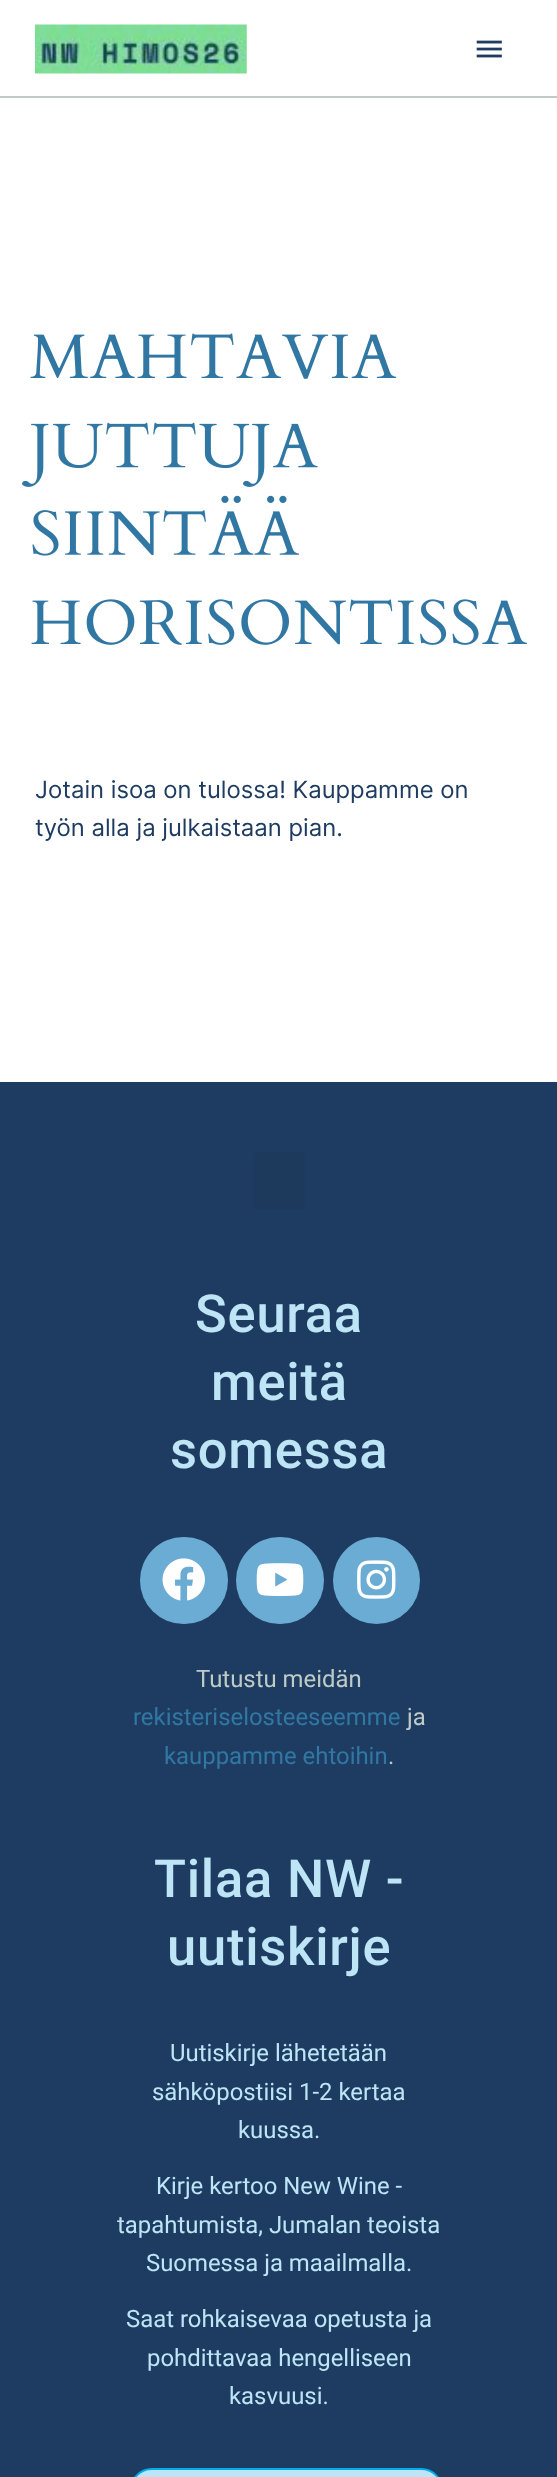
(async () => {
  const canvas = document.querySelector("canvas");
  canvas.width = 557;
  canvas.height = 2477;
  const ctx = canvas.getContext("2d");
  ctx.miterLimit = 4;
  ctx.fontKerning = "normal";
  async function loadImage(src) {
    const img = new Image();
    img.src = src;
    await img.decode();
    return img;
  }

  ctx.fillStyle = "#ffffff";
  ctx.fillRect(0, 0, 557, 2477);
  ctx.fillStyle = "#bfcbc7";
  ctx.fillRect(0, 96, 557, 2);
  ctx.drawImage(await loadImage("img/1.png"), 35, 24, 212, 50);
  ctx.drawImage(await loadImage("img/2.png"), 476, 40, 26, 18);
  ctx.drawImage(await loadImage("img/3.png"), 30, 333, 367, 46);
  ctx.drawImage(await loadImage("img/4.png"), 22, 422, 296, 65);
  ctx.drawImage(await loadImage("img/5.png"), 32, 495, 267, 61);
  ctx.drawImage(await loadImage("img/6.png"), 31, 599, 496, 46);
  ctx.fillStyle = "#1e3c61";
  ctx.fillRect(0, 1082, 557, 1395);
  ctx.fillStyle = "#1d395c";
  ctx.beginPath();
  ctx.roundRect(254, 1152, 51, 57, 5);
  ctx.fill();
  ctx.fillStyle = "#6aacd3";
  ctx.beginPath();
  ctx.roundRect(140, 1537, 88, 87, 43.5);
  ctx.fill();
  ctx.drawImage(await loadImage("img/7.png"), 162, 1558, 43, 43);
  ctx.beginPath();
  ctx.roundRect(236, 1537, 88, 87, 43.5);
  ctx.fill();
  ctx.drawImage(await loadImage("img/8.png"), 256, 1563, 48, 33);
  ctx.beginPath();
  ctx.arc(376.5, 1580.5, 43.5, 0, Math.PI * 2);
  ctx.fill();
  ctx.drawImage(await loadImage("img/9.png"), 357, 1560, 39, 39);
  ctx.fillStyle = "#bde5f6";
  ctx.beginPath();
  ctx.roundRect(131, 2469, 311, 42, 32);
  ctx.fill();
  ctx.strokeStyle = "#00aeef";
  ctx.lineWidth = 2;
  ctx.stroke();
  ctx.font = "23.9px Inter";
  ctx.fillStyle = "#1e3c61";
  ctx.fillText("Jotain isoa on tulossa! Kauppamme on", 35, 798);
  ctx.fillText("työn alla ja julkaistaan pian.", 35, 836);
  ctx.letterSpacing = "0.75px";
  ctx.font = "500 52.5px Roboto";
  ctx.fillStyle = "#bde5f6";
  for (const [text, x, y] of [
    ["Seuraa", 195, 1332],
    ["meitä", 211, 1400],
    ["somessa", 170, 1468],
  ]) {
    ctx.fillText(text, x, y);
  }
  ctx.letterSpacing = "0px";
  ctx.font = "23.9px Roboto";
  ctx.fillStyle = "#bfcbc7";
  ctx.fillText("Tutustu meidän", 196, 1687);
  ctx.fillStyle = "#3177a3";
  ctx.fillText("rekisteriselosteeseemme", 133, 1725);
  ctx.fillStyle = "#bfcbc7";
  ctx.fillText("ja", 407, 1725);
  ctx.fillStyle = "#3177a3";
  ctx.fillText("kauppamme ehtoihin", 164, 1764);
  ctx.fillStyle = "#bfcbc7";
  ctx.fillText(".", 388, 1764);
  ctx.letterSpacing = "0.75px";
  ctx.font = "500 52.5px Roboto";
  ctx.fillStyle = "#bde5f6";
  ctx.fillText("Tilaa NW -", 154, 1897);
  ctx.fillText("uutiskirje", 167, 1965);
  ctx.letterSpacing = "0px";
  ctx.font = "23.9px Roboto";
  for (const [text, x, y] of [
    ["Uutiskirje lähetetään", 170, 2061],
    ["sähköpostiisi 1-2 kertaa", 152, 2100],
    ["kuussa.", 238, 2138],
    ["Kirje kertoo New Wine -", 156, 2194],
    ["tapahtumista, Jumalan teoista", 117, 2233],
    ["Suomessa ja maailmalla.", 146, 2271],
    ["Saat rohkaisevaa opetusta ja", 126, 2327],
    ["pohdittavaa hengelliseen", 147, 2366],
    ["kasvuusi.", 229, 2404],
  ]) {
    ctx.fillText(text, x, y);
  }
})();
